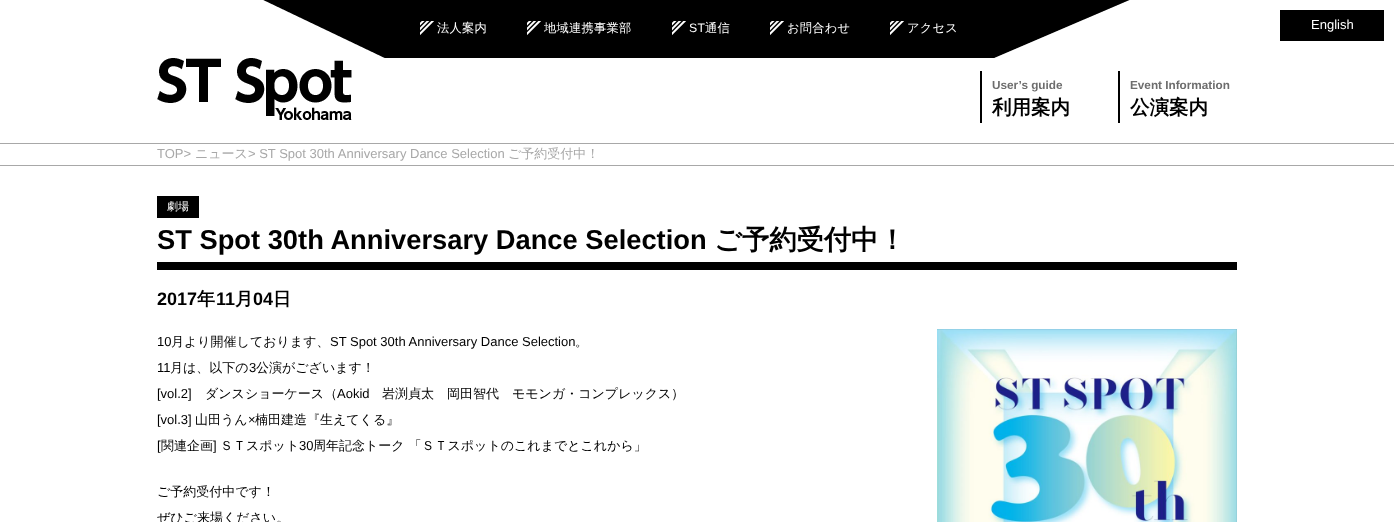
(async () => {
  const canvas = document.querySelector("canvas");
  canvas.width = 1394;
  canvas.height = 522;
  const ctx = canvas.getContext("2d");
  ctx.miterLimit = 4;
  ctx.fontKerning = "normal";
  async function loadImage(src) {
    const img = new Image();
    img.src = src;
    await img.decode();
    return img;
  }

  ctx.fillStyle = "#ffffff";
  ctx.fillRect(0, 0, 1394, 522);
  ctx.drawImage(await loadImage("img/1.png"), 263, 0, 867, 58);
  ctx.drawImage(await loadImage("img/2.png"), 420, 21, 14, 14);
  ctx.drawImage(await loadImage("img/2.png"), 527, 21, 14, 14);
  ctx.drawImage(await loadImage("img/2.png"), 672, 21, 14, 14);
  ctx.drawImage(await loadImage("img/2.png"), 770, 21, 14, 14);
  ctx.drawImage(await loadImage("img/2.png"), 890, 21, 14, 14);
  ctx.fillStyle = "#000000";
  ctx.fillRect(1280, 10, 104, 31);
  ctx.drawImage(await loadImage("img/3.png"), 157, 58, 195, 62);
  for (const [x, y, w, h, color] of [
    [980, 71, 2, 52, "#000000"],
    [1118, 71, 2, 52, "#000000"],
    [0, 143, 1394, 1, "#a8a8a8"],
    [0, 165, 1394, 1, "#a8a8a8"],
    [157, 196, 42, 22, "#000000"],
    [157, 262, 1080, 8, "#000000"],
  ]) {
    ctx.fillStyle = color;
    ctx.fillRect(x, y, w, h);
  }
  ctx.drawImage(await loadImage("img/4.png"), 937, 329, 300, 193);
  ctx.letterSpacing = "0.25px";
  ctx.font = "500 12.25px WenQuanYi Zen Hei";
  ctx.fillStyle = "#ffffff";
  ctx.fillText("法人案内", 437, 32);
  ctx.fillText("地域連携事業部", 544, 32);
  ctx.font = "12.25px Liberation Sans";
  ctx.fillText("ST", 689, 32);
  ctx.font = "500 12.25px WenQuanYi Zen Hei";
  for (const [text, x, y] of [
    ["通信", 705, 32],
    ["お問合わせ", 787, 32],
    ["アクセス", 907, 32],
  ]) {
    ctx.fillText(text, x, y);
  }
  ctx.letterSpacing = "0px";
  ctx.font = "13px Liberation Sans";
  ctx.fillText("English", 1311, 29);
  ctx.font = "bold 11.75px Liberation Sans";
  ctx.fillStyle = "#6d6d6d";
  ctx.fillText("User’s guide", 992, 89);
  ctx.font = "bold 19.5px WenQuanYi Zen Hei";
  ctx.fillStyle = "#000000";
  ctx.fillText("利用案内", 992, 114);
  ctx.font = "bold 11.75px Liberation Sans";
  ctx.fillStyle = "#6d6d6d";
  ctx.fillText("Event Information", 1130, 89);
  ctx.font = "bold 19.5px WenQuanYi Zen Hei";
  ctx.fillStyle = "#000000";
  ctx.fillText("公演案内", 1130, 114);
  ctx.font = "13px Liberation Sans";
  ctx.fillStyle = "#a8a8a8";
  ctx.fillText("TOP>", 157, 158);
  ctx.font = "500 13px WenQuanYi Zen Hei";
  ctx.fillText("ニュース", 195, 158);
  ctx.font = "13px Liberation Sans";
  ctx.fillText("> ST Spot 30th Anniversary Dance Selection", 248, 158);
  ctx.font = "500 13px WenQuanYi Zen Hei";
  ctx.fillText("ご予約受付中！", 508, 158);
  ctx.font = "500 11px WenQuanYi Zen Hei";
  ctx.fillStyle = "#ffffff";
  ctx.fillText("劇場", 167, 210);
  ctx.font = "bold 27.3px Liberation Sans";
  ctx.fillStyle = "#000000";
  ctx.fillText("ST Spot 30th Anniversary Dance Selection", 157, 249);
  ctx.font = "bold 27.3px WenQuanYi Zen Hei";
  ctx.fillText("ご予約受付中！", 714, 249);
  ctx.font = "bold 18px Liberation Sans";
  ctx.fillText("2017", 157, 305);
  ctx.font = "bold 18px WenQuanYi Zen Hei";
  ctx.fillText("年", 197, 305);
  ctx.font = "bold 18px Liberation Sans";
  ctx.fillText("11", 216, 305);
  ctx.font = "bold 18px WenQuanYi Zen Hei";
  ctx.fillText("月", 235, 305);
  ctx.font = "bold 18px Liberation Sans";
  ctx.fillText("04", 253, 305);
  ctx.font = "bold 18px WenQuanYi Zen Hei";
  ctx.fillText("日", 273, 305);
  ctx.font = "13px Liberation Sans";
  ctx.fillText("10", 157, 346);
  ctx.font = "500 13px WenQuanYi Zen Hei";
  ctx.fillText("月より開催しております、", 171, 346);
  ctx.font = "13px Liberation Sans";
  ctx.fillText("ST Spot 30th Anniversary Dance Selection", 330, 346);
  ctx.font = "500 13px WenQuanYi Zen Hei";
  ctx.fillText("。", 575, 346);
  ctx.font = "13px Liberation Sans";
  ctx.fillText("11", 157, 372);
  ctx.font = "500 13px WenQuanYi Zen Hei";
  ctx.fillText("月は、以下の", 170, 372);
  ctx.font = "13px Liberation Sans";
  ctx.fillText("3", 249, 372);
  ctx.font = "500 13px WenQuanYi Zen Hei";
  ctx.fillText("公演がございます！", 256, 372);
  ctx.font = "13px Liberation Sans";
  ctx.fillText("[vol.2]", 157, 398);
  ctx.font = "500 13px WenQuanYi Zen Hei";
  ctx.fillText("ダンスショーケース（", 205, 398);
  ctx.font = "13px Liberation Sans";
  ctx.fillText("Aokid", 337, 398);
  ctx.font = "500 13px WenQuanYi Zen Hei";
  ctx.fillText("岩渕貞太　岡田智代　モモンガ・コンプレックス）", 382, 398);
  ctx.font = "13px Liberation Sans";
  ctx.fillText("[vol.3]", 157, 424);
  ctx.font = "500 13px WenQuanYi Zen Hei";
  ctx.fillText("山田うん", 195, 424);
  ctx.font = "13px Liberation Sans";
  ctx.fillText("×", 248, 424);
  ctx.font = "500 13px WenQuanYi Zen Hei";
  ctx.fillText("楠田建造『生えてくる』", 255, 424);
  ctx.font = "13px Liberation Sans";
  ctx.fillText("[", 157, 450);
  ctx.font = "500 13px WenQuanYi Zen Hei";
  ctx.fillText("関連企画", 161, 450);
  ctx.font = "13px Liberation Sans";
  ctx.fillText("]", 213, 450);
  ctx.font = "500 13px WenQuanYi Zen Hei";
  ctx.fillText("ＳＴスポット", 220, 450);
  ctx.font = "13px Liberation Sans";
  ctx.fillText("30", 299, 450);
  ctx.font = "500 13px WenQuanYi Zen Hei";
  for (const [text, x, y] of [
    ["周年記念トーク 「ＳＴスポットのこれまでとこれから」", 313, 450],
    ["ご予約受付中です！", 157, 496],
    ["ぜひご来場ください。", 157, 522],
  ]) {
    ctx.fillText(text, x, y);
  }
})();
